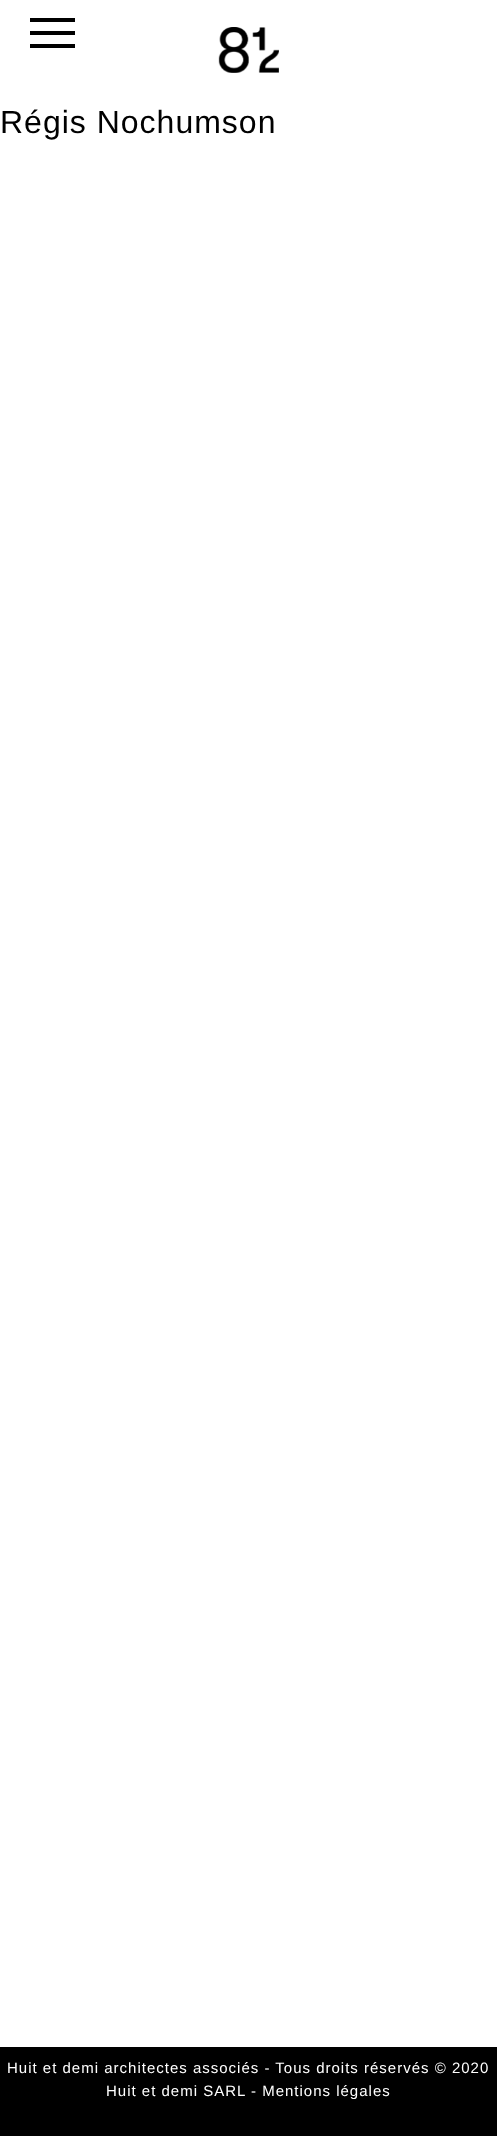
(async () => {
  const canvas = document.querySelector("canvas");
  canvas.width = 497;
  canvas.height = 2136;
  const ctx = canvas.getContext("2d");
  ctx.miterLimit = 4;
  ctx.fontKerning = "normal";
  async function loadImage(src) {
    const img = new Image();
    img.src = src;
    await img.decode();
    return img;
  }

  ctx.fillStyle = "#ffffff";
  ctx.fillRect(0, 0, 497, 2136);
  for (const [x, y, w, h, color] of [
    [30, 18, 45, 4, "#000000"],
    [30, 31, 45, 4, "#000000"],
    [30, 44, 45, 4, "#000000"],
  ]) {
    ctx.fillStyle = color;
    ctx.fillRect(x, y, w, h);
  }
  ctx.drawImage(await loadImage("img/1.png"), 218, 27, 61, 46);
  ctx.fillRect(0, 2047, 497, 89);
  ctx.letterSpacing = "1px";
  ctx.font = "32px Liberation Sans";
  ctx.fillText("Régis Nochumson", 0, 133);
  ctx.font = "15px Liberation Sans";
  ctx.fillStyle = "#ffffff";
  ctx.fillText("Huit et demi architectes associés - Tous droits réservés © 2020", 7, 2073);
  ctx.fillText("Huit et demi SARL - Mentions légales", 106, 2096);
})();
